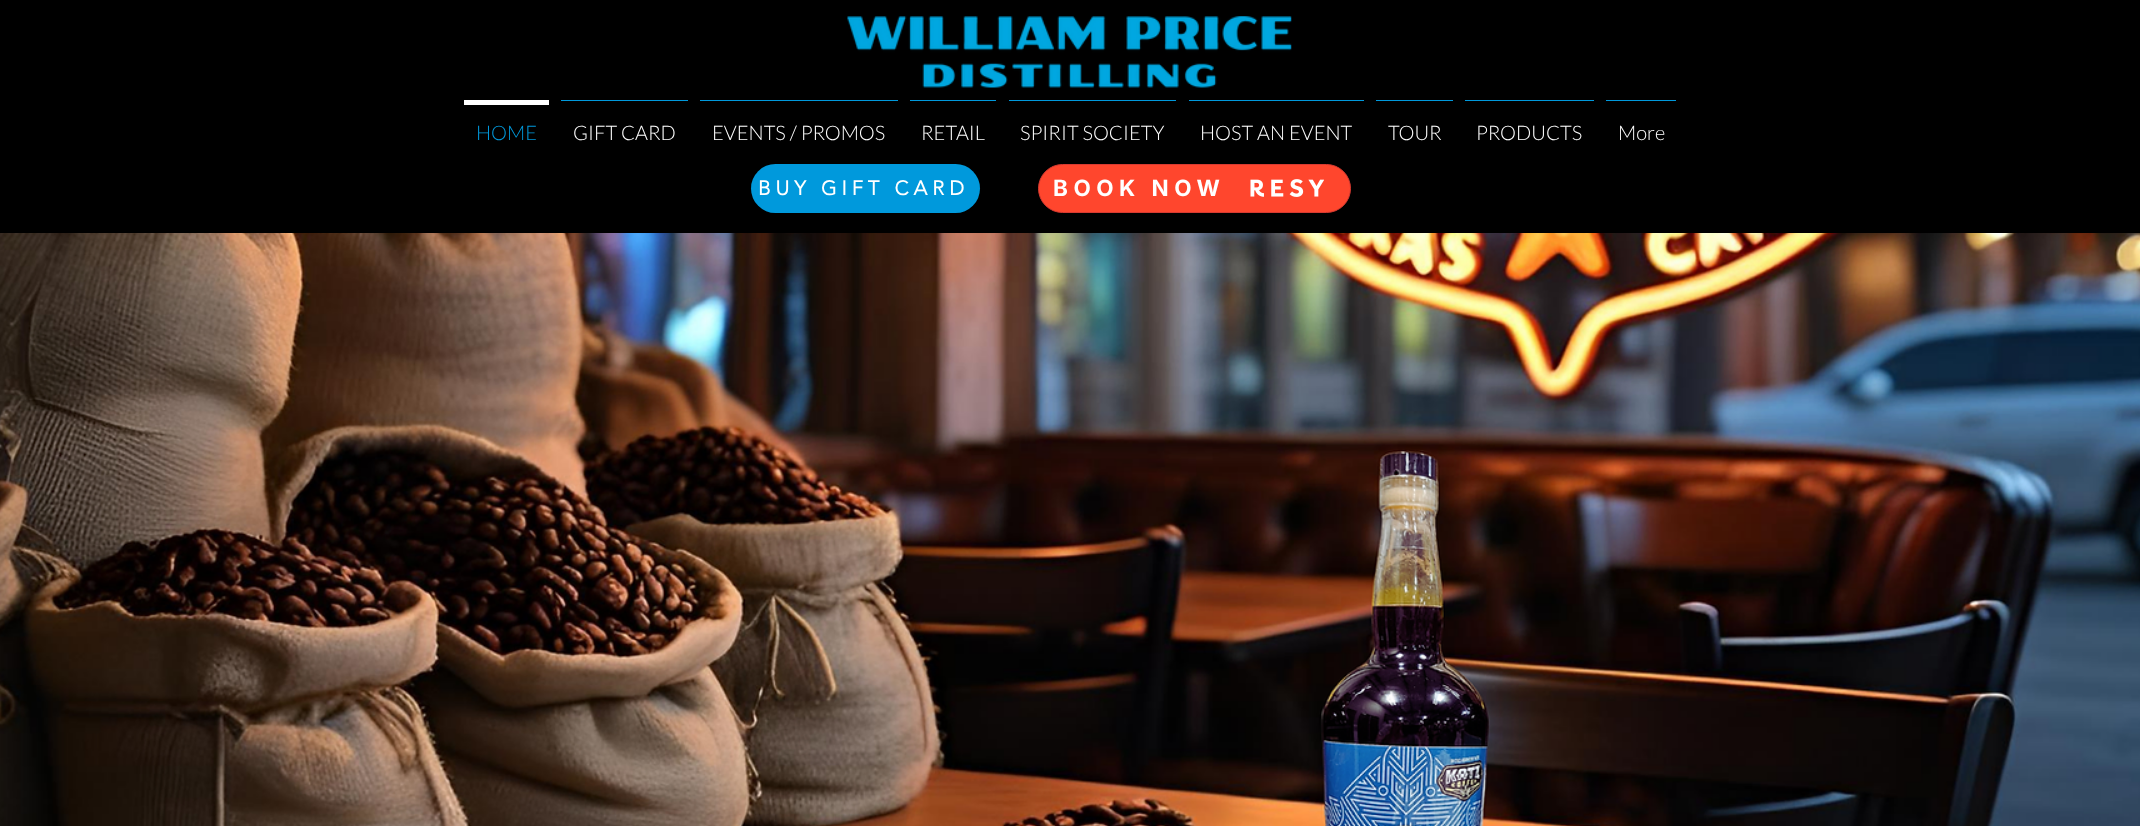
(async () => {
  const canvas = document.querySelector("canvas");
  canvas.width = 2140;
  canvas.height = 826;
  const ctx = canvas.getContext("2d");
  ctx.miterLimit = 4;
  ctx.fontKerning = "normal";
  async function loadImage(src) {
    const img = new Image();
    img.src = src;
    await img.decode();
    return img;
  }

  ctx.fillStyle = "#ffffff";
  ctx.fillRect(0, 0, 2140, 826);
  ctx.fillStyle = "#000000";
  ctx.fillRect(0, 0, 2140, 233);
  ctx.drawImage(await loadImage("img/1.png"), 847, 16, 445, 72);
  for (const [x, y, w, h, color] of [
    [464, 100, 85, 5, "#ffffff"],
    [561, 100, 127, 1, "#0099dc"],
    [700, 100, 198, 1, "#0099dc"],
    [910, 100, 86, 1, "#0099dc"],
    [1009, 100, 167, 1, "#0099dc"],
    [1189, 100, 175, 1, "#0099dc"],
    [1376, 100, 77, 1, "#0099dc"],
    [1465, 100, 129, 1, "#0099dc"],
    [1606, 100, 70, 1, "#0099dc"],
  ]) {
    ctx.fillStyle = color;
    ctx.fillRect(x, y, w, h);
  }
  ctx.beginPath();
  ctx.roundRect(751, 164, 229, 49, 24.5);
  ctx.fill();
  ctx.fillStyle = "#ff462d";
  ctx.beginPath();
  ctx.roundRect(1038.5, 164.5, 312, 48, 24);
  ctx.fill();
  ctx.strokeStyle = "#d73a31";
  ctx.stroke();
  ctx.drawImage(await loadImage("img/2.png"), 1250, 179, 74, 18);
  ctx.drawImage(await loadImage("img/3.png"), 0, 233, 2140, 593);
  ctx.font = "300 20px Lato";
  ctx.fillStyle = "#0099dc";
  ctx.fillText("HOME", 476, 140);
  ctx.fillStyle = "#ffffff";
  for (const [text, x, y] of [
    ["GIFT CARD", 573, 140],
    ["EVENTS / PROMOS", 712, 140],
    ["RETAIL", 921, 140],
    ["SPIRIT SOCIETY", 1020, 140],
    ["HOST AN EVENT", 1200, 140],
    ["TOUR", 1388, 140],
    ["PRODUCTS", 1476, 140],
    ["More", 1618, 140],
  ]) {
    ctx.fillText(text, x, y);
  }
  ctx.letterSpacing = "5px";
  ctx.font = "bold 20px 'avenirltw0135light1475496'";
  ctx.fillText("BUY GIFT CARD", 758, 195);
  ctx.letterSpacing = "5.5px";
  ctx.font = "bold 22.5px Inter";
  ctx.fillText("BOOK NOW", 1053, 196);
})();
